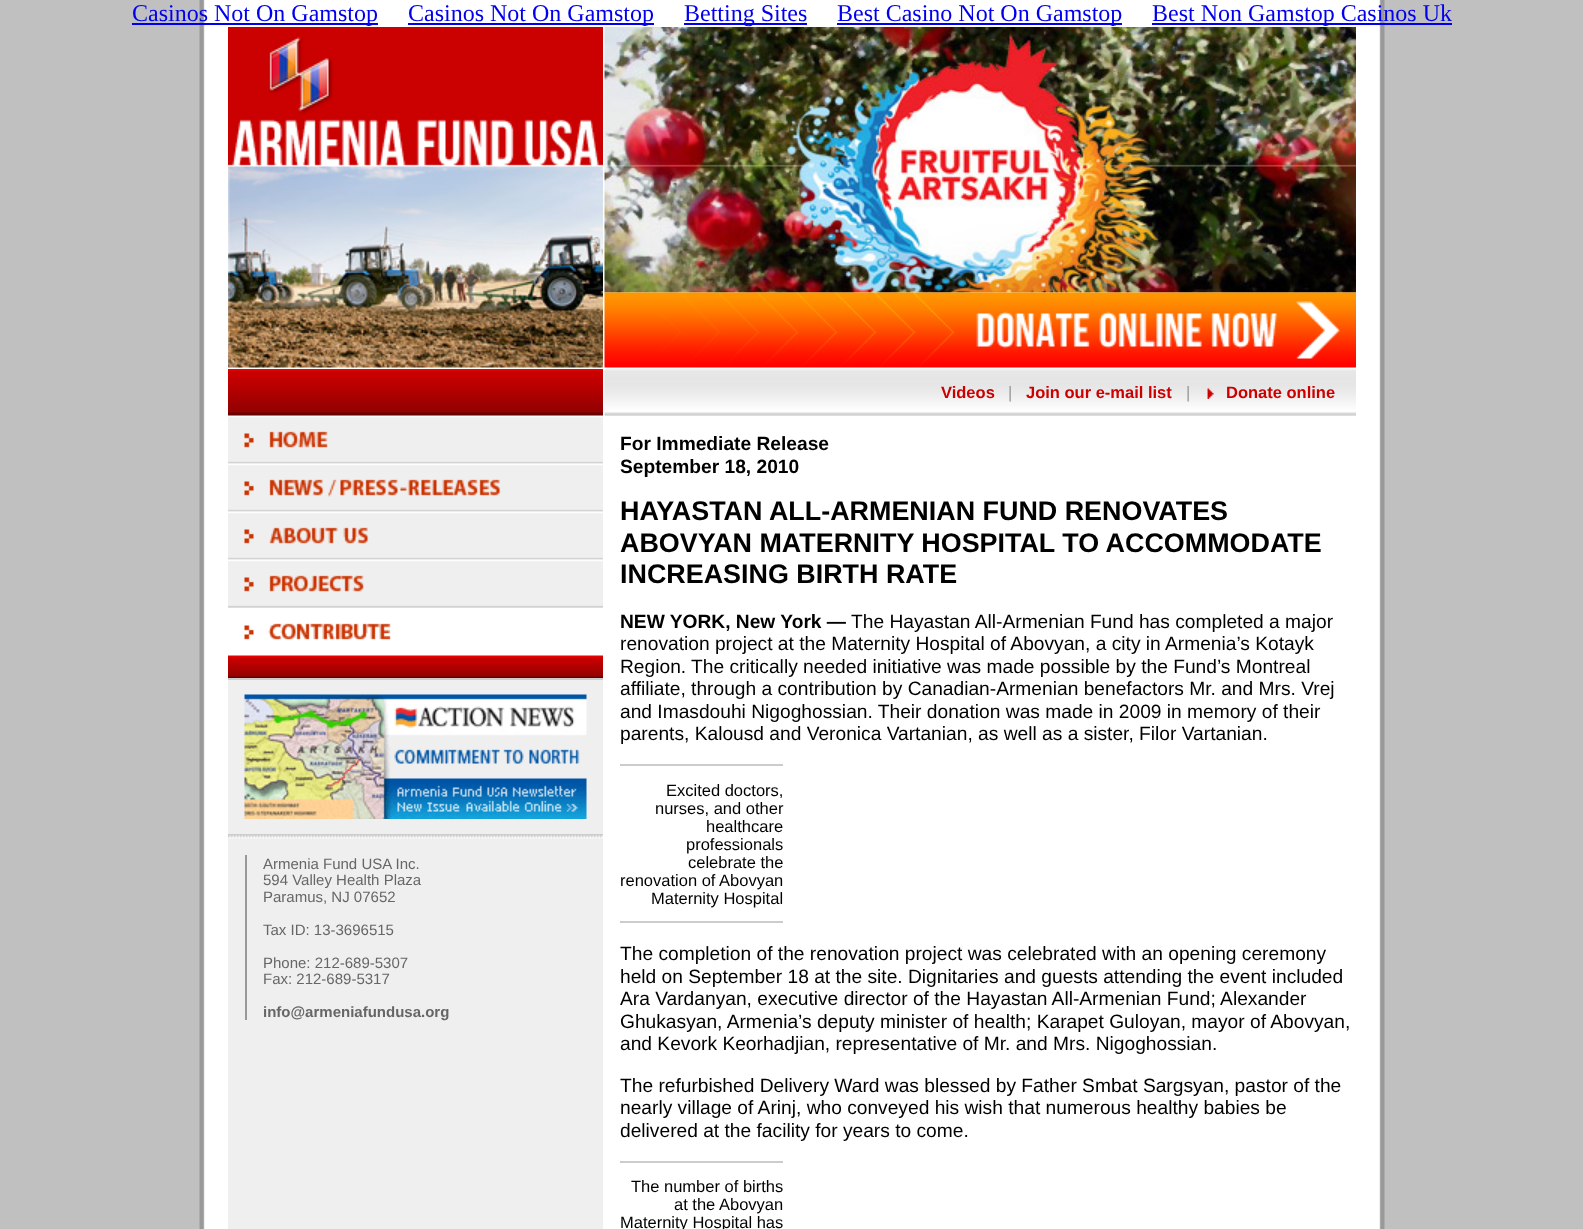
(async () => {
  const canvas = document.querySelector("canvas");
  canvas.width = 1583;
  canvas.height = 1229;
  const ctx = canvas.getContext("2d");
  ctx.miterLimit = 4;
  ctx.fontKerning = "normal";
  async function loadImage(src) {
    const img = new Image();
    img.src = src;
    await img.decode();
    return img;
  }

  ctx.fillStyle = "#ffffff";
  ctx.fillRect(0, 0, 1583, 1229);
  ctx.drawImage(await loadImage("img/1.png"), 0, 0, 1583, 1229);
  for (const [x, y, w, h, color] of [
    [132, 23, 246, 2, "#0000ee"],
    [408, 23, 246, 2, "#0000ee"],
    [684, 23, 123, 2, "#0000ee"],
    [837, 23, 285, 2, "#0000ee"],
    [1152, 23, 300, 2, "#0000ee"],
  ]) {
    ctx.fillStyle = color;
    ctx.fillRect(x, y, w, h);
  }
  ctx.drawImage(await loadImage("img/2.png"), 228, 27, 375, 341);
  ctx.drawImage(await loadImage("img/3.png"), 604, 27, 752, 266);
  ctx.drawImage(await loadImage("img/4.png"), 604, 292, 752, 76);
  ctx.fillStyle = "#efefef";
  ctx.fillRect(228, 415, 375, 814);
  ctx.drawImage(await loadImage("img/6.png"), 228, 415, 375, 49);
  ctx.drawImage(await loadImage("img/5.png"), 228, 369, 375, 47);
  ctx.drawImage(await loadImage("img/7.png"), 244, 431, 84, 17);
  ctx.drawImage(await loadImage("img/8.png"), 228, 463, 375, 49);
  ctx.drawImage(await loadImage("img/9.png"), 244, 479, 257, 18);
  ctx.drawImage(await loadImage("img/8.png"), 228, 511, 375, 49);
  ctx.drawImage(await loadImage("img/10.png"), 244, 527, 125, 17);
  ctx.drawImage(await loadImage("img/8.png"), 228, 559, 375, 49);
  ctx.drawImage(await loadImage("img/11.png"), 244, 575, 120, 17);
  ctx.fillStyle = "#ffffff";
  ctx.fillRect(228, 608, 375, 48);
  ctx.drawImage(await loadImage("img/12.png"), 244, 623, 147, 17);
  ctx.drawImage(await loadImage("img/13.png"), 228, 655, 375, 23);
  ctx.fillStyle = "#cccccc";
  ctx.fillRect(228, 678, 375, 2);
  ctx.drawImage(await loadImage("img/14.png"), 244, 694, 343, 125);
  ctx.fillRect(228, 834, 375, 2);
  ctx.drawImage(await loadImage("img/15.png"), 228, 835, 375, 4);
  ctx.fillStyle = "#999999";
  ctx.fillRect(245, 855, 2, 165);
  ctx.fillStyle = "#efefef";
  ctx.fillRect(605, 415, 751, 1);
  ctx.drawImage(await loadImage("img/16.png"), 604, 369, 752, 47);
  ctx.drawImage(await loadImage("img/17.png"), 1207, 388, 7, 11);
  for (const [x, y, w, h, color] of [
    [620, 764, 163, 2, "#cccccc"],
    [620, 921, 163, 2, "#cccccc"],
    [620, 1161, 163, 2, "#cccccc"],
  ]) {
    ctx.fillStyle = color;
    ctx.fillRect(x, y, w, h);
  }
  ctx.font = "24px Liberation Serif";
  ctx.fillStyle = "#0000ee";
  for (const [text, x, y] of [
    ["Casinos Not On Gamstop", 132, 21],
    ["Casinos Not On Gamstop", 408, 21],
    ["Betting Sites", 684, 21],
    ["Best Casino Not On Gamstop", 837, 21],
    ["Best Non Gamstop Casinos Uk", 1152, 21],
  ]) {
    ctx.fillText(text, x, y);
  }
  ctx.font = "15px Liberation Sans";
  ctx.fillStyle = "#666666";
  for (const [text, x, y] of [
    ["Armenia Fund USA Inc.", 263, 869],
    ["594 Valley Health Plaza", 263, 885],
    ["Paramus, NJ 07652", 263, 902],
    ["Tax ID: 13-3696515", 263, 935],
    ["Phone: 212-689-5307", 263, 968],
    ["Fax: 212-689-5317", 263, 984],
  ]) {
    ctx.fillText(text, x, y);
  }
  ctx.font = "bold 15px Liberation Sans";
  ctx.fillText("info@armeniafundusa.org", 263, 1017);
  ctx.font = "bold 16.5px Liberation Sans";
  ctx.fillStyle = "#cc0000";
  ctx.fillText("Videos", 941, 398);
  ctx.font = "16.5px Liberation Sans";
  ctx.fillStyle = "#999999";
  ctx.fillText("|", 1008, 398);
  ctx.font = "bold 16.5px Liberation Sans";
  ctx.fillStyle = "#cc0000";
  ctx.fillText("Join our e-mail list", 1026, 398);
  ctx.font = "16.5px Liberation Sans";
  ctx.fillStyle = "#999999";
  ctx.fillText("|", 1186, 398);
  ctx.font = "bold 16.5px Liberation Sans";
  ctx.fillStyle = "#cc0000";
  ctx.fillText("Donate online", 1226, 398);
  ctx.font = "bold 19.2px Liberation Sans";
  ctx.fillStyle = "#000000";
  ctx.fillText("For Immediate Release", 620, 450);
  ctx.fillText("September 18, 2010", 620, 473);
  ctx.font = "bold 26.9px Liberation Sans";
  for (const [text, x, y] of [
    ["HAYASTAN ALL-ARMENIAN FUND RENOVATES", 620, 520],
    ["ABOVYAN MATERNITY HOSPITAL TO ACCOMMODATE", 620, 552],
    ["INCREASING BIRTH RATE", 620, 583],
  ]) {
    ctx.fillText(text, x, y);
  }
  ctx.font = "bold 19.2px Liberation Sans";
  ctx.fillText("NEW YORK, New York —", 620, 628);
  ctx.font = "19.2px Liberation Sans";
  for (const [text, x, y] of [
    ["The Hayastan All-Armenian Fund has completed a major", 851, 628],
    ["renovation project at the Maternity Hospital of Abovyan, a city in Armenia’s Kotayk", 620, 650],
    ["Region. The critically needed initiative was made possible by the Fund’s Montreal", 620, 673],
    ["affiliate, through a contribution by Canadian-Armenian benefactors Mr. and Mrs. Vrej", 620, 695],
    ["and Imasdouhi Nigoghossian. Their donation was made in 2009 in memory of their", 620, 718],
    ["parents, Kalousd and Veronica Vartanian, as well as a sister, Filor Vartanian.", 620, 740],
  ]) {
    ctx.fillText(text, x, y);
  }
  ctx.font = "16.5px Liberation Sans";
  for (const [text, x, y] of [
    ["Excited doctors,", 666, 796],
    ["nurses, and other", 655, 814],
    ["healthcare", 706, 832],
    ["professionals", 686, 850],
    ["celebrate the", 688, 868],
    ["renovation of Abovyan", 620, 886],
    ["Maternity Hospital", 651, 904],
  ]) {
    ctx.fillText(text, x, y);
  }
  ctx.font = "19.2px Liberation Sans";
  for (const [text, x, y] of [
    ["The completion of the renovation project was celebrated with an opening ceremony", 620, 960],
    ["held on September 18 at the site. Dignitaries and guests attending the event included", 620, 983],
    ["Ara Vardanyan, executive director of the Hayastan All-Armenian Fund; Alexander", 620, 1005],
    ["Ghukasyan, Armenia’s deputy minister of health; Karapet Guloyan, mayor of Abovyan,", 620, 1028],
    ["and Kevork Keorhadjian, representative of Mr. and Mrs. Nigoghossian.", 620, 1050],
    ["The refurbished Delivery Ward was blessed by Father Smbat Sargsyan, pastor of the", 620, 1092],
    ["nearly village of Arinj, who conveyed his wish that numerous healthy babies be", 620, 1114],
    ["delivered at the facility for years to come.", 620, 1137],
  ]) {
    ctx.fillText(text, x, y);
  }
  ctx.font = "16.5px Liberation Sans";
  for (const [text, x, y] of [
    ["The number of births", 631, 1192],
    ["at the Abovyan", 674, 1210],
    ["Maternity Hospital has", 620, 1228],
  ]) {
    ctx.fillText(text, x, y);
  }
})();
